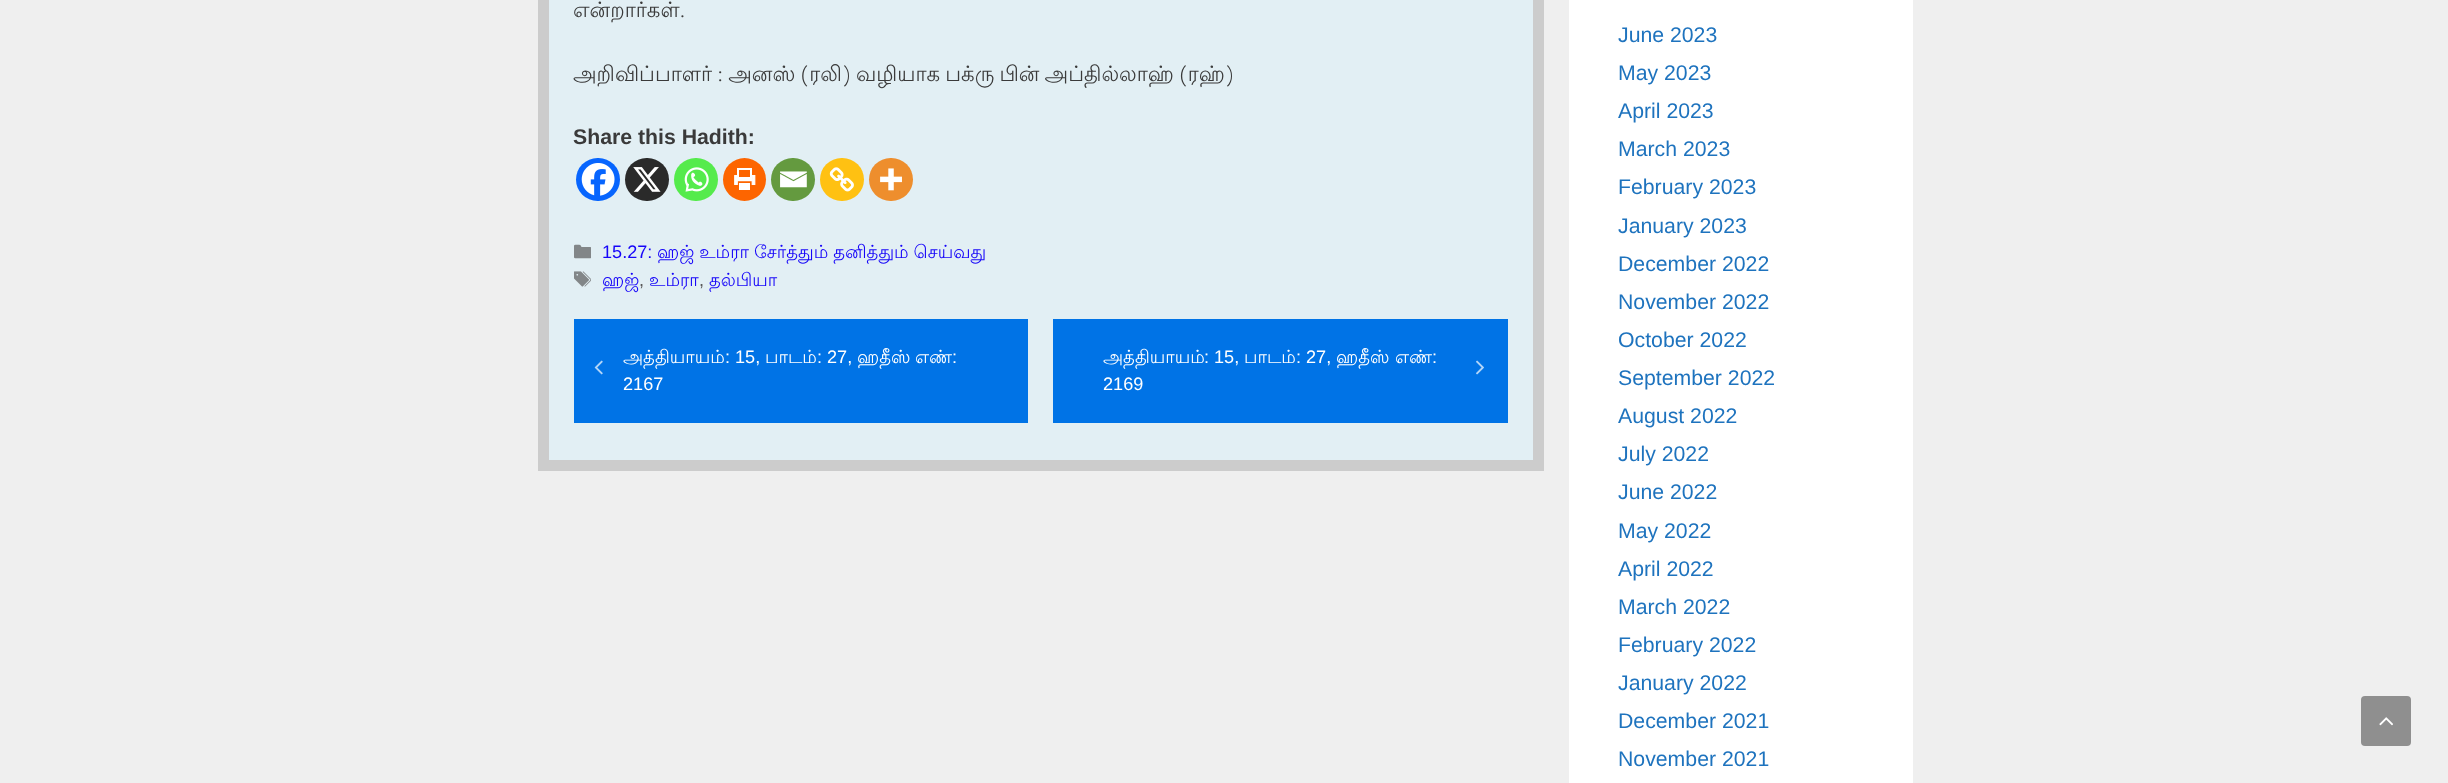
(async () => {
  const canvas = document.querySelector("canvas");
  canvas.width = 2448;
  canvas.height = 783;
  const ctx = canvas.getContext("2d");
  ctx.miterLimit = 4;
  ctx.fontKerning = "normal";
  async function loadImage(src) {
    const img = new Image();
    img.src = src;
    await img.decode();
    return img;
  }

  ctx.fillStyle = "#efefef";
  ctx.fillRect(0, 0, 2448, 783);
  ctx.fillStyle = "#e2eff4";
  ctx.beginPath();
  ctx.rect(543.5, -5.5, 995, 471);
  ctx.fill();
  ctx.strokeStyle = "#cccccc";
  ctx.lineWidth = 11;
  ctx.stroke();
  ctx.fillStyle = "#0765fe";
  ctx.beginPath();
  ctx.roundRect(576, 158, 44, 43, 21.5);
  ctx.fill();
  ctx.drawImage(await loadImage("img/1.png"), 581, 163, 34, 33);
  ctx.fillStyle = "#2a2a2a";
  ctx.beginPath();
  ctx.roundRect(625, 158, 44, 43, 21.5);
  ctx.fill();
  ctx.drawImage(await loadImage("img/2.png"), 633, 167, 28, 25);
  ctx.fillStyle = "#55eb4c";
  ctx.beginPath();
  ctx.roundRect(674, 158, 44, 43, 21.5);
  ctx.fill();
  ctx.drawImage(await loadImage("img/3.png"), 684, 167, 25, 25);
  ctx.fillStyle = "#fd6500";
  ctx.beginPath();
  ctx.arc(744.5, 179.5, 21.5, 0, Math.PI * 2);
  ctx.fill();
  ctx.drawImage(await loadImage("img/4.png"), 734, 168, 22, 22);
  ctx.fillStyle = "#649a3f";
  ctx.beginPath();
  ctx.roundRect(771, 158, 44, 43, 21.5);
  ctx.fill();
  ctx.drawImage(await loadImage("img/5.png"), 780, 171, 27, 17);
  ctx.fillStyle = "#ffc112";
  ctx.beginPath();
  ctx.roundRect(820, 158, 44, 43, 21.5);
  ctx.fill();
  ctx.drawImage(await loadImage("img/6.png"), 829, 167, 25, 25);
  ctx.fillStyle = "#ee8e2d";
  ctx.beginPath();
  ctx.roundRect(869, 158, 44, 43, 21.5);
  ctx.fill();
  ctx.drawImage(await loadImage("img/7.png"), 880, 168, 22, 23);
  ctx.drawImage(await loadImage("img/8.png"), 574, 244, 17, 15);
  ctx.drawImage(await loadImage("img/9.png"), 574, 271, 17, 16);
  ctx.fillStyle = "#0073e6";
  ctx.fillRect(574, 319, 454, 104);
  ctx.drawImage(await loadImage("img/10.png"), 594, 360, 9, 15);
  ctx.fillRect(1053, 319, 455, 104);
  ctx.drawImage(await loadImage("img/11.png"), 1476, 360, 8, 15);
  ctx.fillStyle = "#ffffff";
  ctx.fillRect(1569, 0, 344, 783);
  ctx.fillStyle = "#8f8f8f";
  ctx.beginPath();
  ctx.roundRect(2361, 696, 50, 50, 4);
  ctx.fill();
  ctx.drawImage(await loadImage("img/12.png"), 2379, 717, 14, 9);
  ctx.font = "21.25px Lohit Tamil";
  ctx.fillStyle = "#3a3a3a";
  ctx.fillText("என்றார்கள்.", 573, 17);
  ctx.wordSpacing = "-1.25px";
  ctx.fillText("அறிவிப்பாளர் : அனஸ் (ரலி) வழியாக பக்ரு பின் அப்தில்லாஹ் (ரஹ்)", 573, 81);
  ctx.wordSpacing = "0px";
  ctx.font = "bold 21.25px Liberation Sans";
  ctx.fillText("Share this Hadith:", 573, 144);
  ctx.font = "18.1px Liberation Sans";
  ctx.fillStyle = "#1605f9";
  ctx.fillText("15.27:", 602, 258);
  ctx.wordSpacing = "-0.5px";
  ctx.font = "18.1px Lohit Tamil";
  ctx.fillText("ஹஜ் உம்ரா சேர்த்தும் தனித்தும் செய்வது", 657, 258);
  ctx.wordSpacing = "0px";
  ctx.fillText("ஹஜ்", 602, 286);
  ctx.font = "18.1px Liberation Sans";
  ctx.fillStyle = "#595959";
  ctx.fillText(",", 639, 286);
  ctx.font = "18.1px Lohit Tamil";
  ctx.fillStyle = "#1605f9";
  ctx.fillText("உம்ரா", 649, 286);
  ctx.font = "18.1px Liberation Sans";
  ctx.fillStyle = "#595959";
  ctx.fillText(",", 699, 286);
  ctx.font = "18.1px Lohit Tamil";
  ctx.fillStyle = "#1605f9";
  ctx.fillText("தல்பியா", 709, 286);
  ctx.fillStyle = "#ffffff";
  ctx.fillText("அத்தியாயம்", 623, 363);
  ctx.font = "18.1px Liberation Sans";
  ctx.fillText(": 15,", 725, 363);
  ctx.font = "18.1px Lohit Tamil";
  ctx.fillText("பாடம்", 765, 363);
  ctx.font = "18.1px Liberation Sans";
  ctx.fillText(": 27,", 817, 363);
  ctx.font = "18.1px Lohit Tamil";
  ctx.fillText("ஹதீஸ்", 857, 363);
  ctx.fillText("எண்", 915, 363);
  ctx.font = "18.1px Liberation Sans";
  ctx.fillText(":", 952, 363);
  ctx.fillText("2167", 623, 390);
  ctx.font = "18.1px Lohit Tamil";
  ctx.fillText("அத்தியாயம்", 1103, 363);
  ctx.font = "18.1px Liberation Sans";
  ctx.fillText(": 15,", 1204, 363);
  ctx.font = "18.1px Lohit Tamil";
  ctx.fillText("பாடம்", 1244, 363);
  ctx.font = "18.1px Liberation Sans";
  ctx.fillText(": 27,", 1296, 363);
  ctx.font = "18.1px Lohit Tamil";
  ctx.fillText("ஹதீஸ்", 1336, 363);
  ctx.fillText("எண்", 1395, 363);
  ctx.font = "18.1px Liberation Sans";
  ctx.fillText(":", 1432, 363);
  ctx.fillText("2169", 1103, 390);
  ctx.font = "21.25px Liberation Sans";
  ctx.fillStyle = "#1e73be";
  for (const [text, x, y] of [
    ["June 2023", 1618, 42],
    ["May 2023", 1618, 80],
    ["April 2023", 1618, 118],
    ["March 2023", 1618, 156],
    ["February 2023", 1618, 194],
    ["January 2023", 1618, 233],
    ["December 2022", 1618, 271],
    ["November 2022", 1618, 309],
    ["October 2022", 1618, 347],
    ["September 2022", 1618, 385],
    ["August 2022", 1618, 423],
    ["July 2022", 1618, 461],
    ["June 2022", 1618, 499],
    ["May 2022", 1618, 538],
    ["April 2022", 1618, 576],
    ["March 2022", 1618, 614],
    ["February 2022", 1618, 652],
    ["January 2022", 1618, 690],
    ["December 2021", 1618, 728],
    ["November 2021", 1618, 766],
  ]) {
    ctx.fillText(text, x, y);
  }
})();
